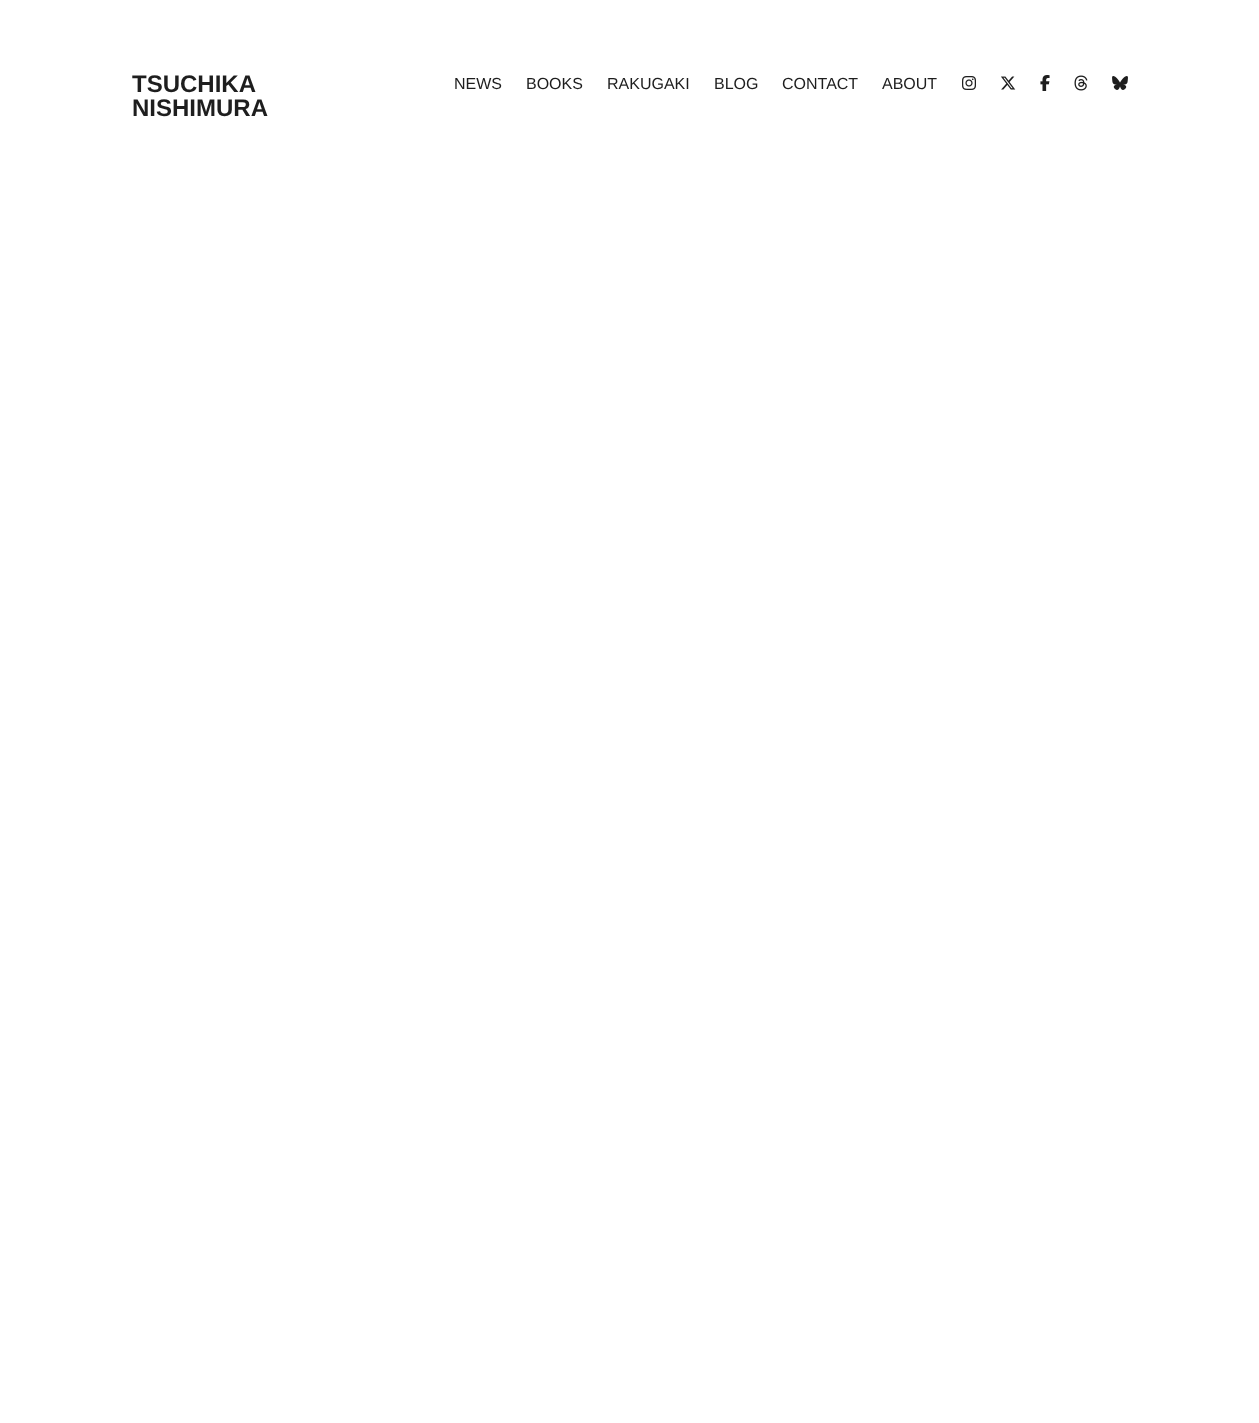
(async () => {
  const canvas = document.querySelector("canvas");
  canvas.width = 1259;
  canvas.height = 1423;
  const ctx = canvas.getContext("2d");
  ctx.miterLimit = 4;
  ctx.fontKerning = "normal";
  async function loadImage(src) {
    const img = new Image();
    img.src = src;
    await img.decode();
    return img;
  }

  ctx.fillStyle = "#ffffff";
  ctx.fillRect(0, 0, 1259, 1423);
  ctx.drawImage(await loadImage("img/1.png"), 962, 76, 14, 14);
  ctx.drawImage(await loadImage("img/2.png"), 1001, 76, 15, 14);
  ctx.drawImage(await loadImage("img/3.png"), 1040, 75, 10, 16);
  ctx.drawImage(await loadImage("img/4.png"), 1074, 75, 14, 16);
  ctx.drawImage(await loadImage("img/5.png"), 1112, 76, 16, 14);
  ctx.font = "bold 24px Liberation Sans";
  ctx.fillStyle = "#1e1e1e";
  ctx.fillText("TSUCHIKA", 132, 92);
  ctx.fillText("NISHIMURA", 132, 116);
  ctx.font = "16px Liberation Sans";
  for (const [text, x, y] of [
    ["NEWS", 454, 89],
    ["BOOKS", 526, 89],
    ["RAKUGAKI", 607, 89],
    ["BLOG", 714, 89],
    ["CONTACT", 782, 89],
    ["ABOUT", 882, 89],
  ]) {
    ctx.fillText(text, x, y);
  }
})();
